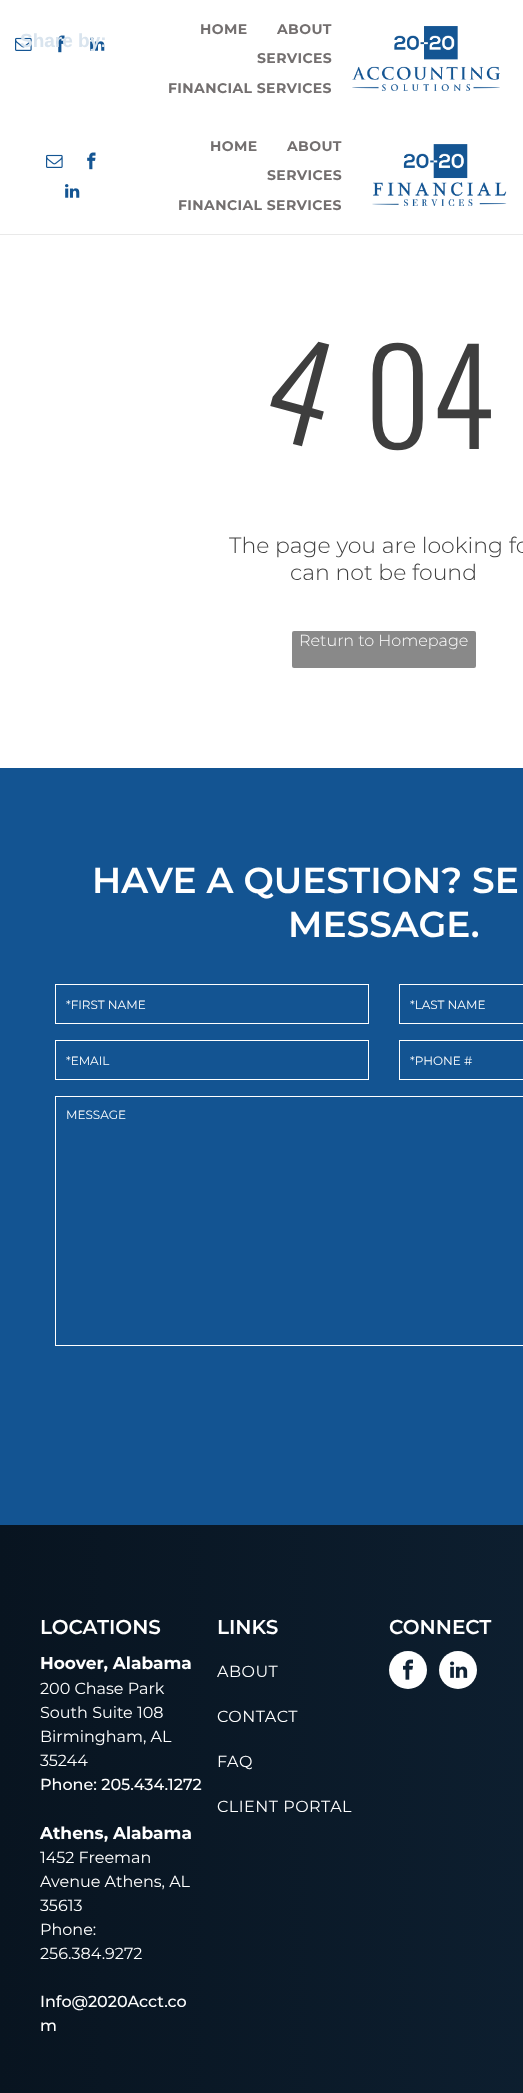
(async () => {
  const canvas = document.querySelector("canvas");
  canvas.width = 523;
  canvas.height = 2093;
  const ctx = canvas.getContext("2d");
  ctx.miterLimit = 4;
  ctx.fontKerning = "normal";
  async function loadImage(src) {
    const img = new Image();
    img.src = src;
    await img.decode();
    return img;
  }
  let gradient;

  ctx.fillStyle = "#ffffff";
  ctx.fillRect(0, 0, 523, 2093);
  ctx.fillStyle = "#e9e9e9";
  ctx.fillRect(0, 234, 523, 1);
  ctx.drawImage(await loadImage("img/1.png"), 15, 37, 17, 14);
  ctx.drawImage(await loadImage("img/2.png"), 56, 35, 9, 18);
  ctx.drawImage(await loadImage("img/3.png"), 90, 37, 15, 14);
  ctx.drawImage(await loadImage("img/4.png"), 352, 26, 148, 65);
  ctx.drawImage(await loadImage("img/1.png"), 46, 154, 17, 14);
  ctx.drawImage(await loadImage("img/2.png"), 87, 152, 9, 18);
  ctx.drawImage(await loadImage("img/3.png"), 65, 184, 15, 14);
  ctx.drawImage(await loadImage("img/5.png"), 372, 144, 135, 62);
  ctx.fillStyle = "#898989";
  ctx.beginPath();
  ctx.roundRect(292, 631, 184, 37, 2);
  ctx.fill();
  gradient = ctx.createLinearGradient(0, 1453, 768, 1453);
  gradient.addColorStop(0, "#081420");
  gradient.addColorStop(1, "#0f2336");
  ctx.fillStyle = gradient;
  ctx.fillRect(0, 1525, 523, 568);
  ctx.fillStyle = "#135492";
  ctx.fillRect(0, 768, 523, 757);
  ctx.strokeStyle = "#ffffff";
  ctx.strokeRect(55.5, 984.5, 313, 39);
  ctx.strokeRect(399.5, 984.5, 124, 39);
  ctx.strokeRect(55.5, 1040.5, 313, 39);
  ctx.strokeRect(399.5, 1040.5, 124, 39);
  ctx.strokeRect(55.5, 1096.5, 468, 249);
  ctx.fillStyle = "#ffffff";
  ctx.beginPath();
  ctx.arc(408, 1670, 19, 0, Math.PI * 2);
  ctx.fill();
  ctx.drawImage(await loadImage("img/6.png"), 403, 1659, 10, 21);
  ctx.beginPath();
  ctx.arc(458, 1670, 19, 0, Math.PI * 2);
  ctx.fill();
  ctx.drawImage(await loadImage("img/7.png"), 450, 1661, 18, 17);
  ctx.letterSpacing = "0.4px";
  ctx.font = "bold 14px Montserrat";
  ctx.fillStyle = "#736f6f";
  for (const [text, x, y] of [
    ["HOME", 200, 34],
    ["ABOUT", 277, 34],
    ["SERVICES", 257, 63],
    ["FINANCIAL SERVICES", 168, 93],
    ["HOME", 210, 151],
    ["ABOUT", 287, 151],
    ["SERVICES", 267, 180],
    ["FINANCIAL SERVICES", 178, 210],
  ]) {
    ctx.fillText(text, x, y);
  }
  ctx.letterSpacing = "0px";
  ctx.font = "300 130px Oswald";
  ctx.fillStyle = "#3e3e3e";
  ctx.save();
  ctx.translate(256, 434);
  ctx.rotate(15 * Math.PI / 180);
  ctx.fillText("4", 0, 0);
  ctx.restore();
  ctx.fillText("04", 364, 449);
  ctx.font = "300 22px Montserrat";
  ctx.fillText("The page you are looking fo", 229, 553);
  ctx.fillText("can not be found", 290, 580);
  ctx.font = "300 16px Montserrat";
  ctx.fillStyle = "#ffffff";
  ctx.fillText("Return to Homepage", 299, 646);
  ctx.font = "600 36px Montserrat";
  ctx.fillText("HAVE A QUESTION? SE", 92, 893);
  ctx.fillText("MESSAGE.", 288, 937);
  ctx.font = "12px Montserrat";
  for (const [text, x, y] of [
    ["*FIRST NAME", 66, 1009],
    ["*LAST NAME", 410, 1009],
    ["*EMAIL", 66, 1065],
    ["*PHONE #", 410, 1065],
    ["MESSAGE", 66, 1119],
  ]) {
    ctx.fillText(text, x, y);
  }
  ctx.font = "600 20px Montserrat";
  ctx.fillText("LOCATIONS", 40, 1634);
  ctx.font = "bold 17px Montserrat";
  ctx.fillText("Hoover, Alabama", 40, 1669);
  ctx.font = "16px Montserrat";
  for (const [text, x, y] of [
    ["200 Chase Park", 40, 1694],
    ["South Suite 108", 40, 1718],
    ["Birmingham, AL", 40, 1742],
    ["35244", 40, 1766],
  ]) {
    ctx.fillText(text, x, y);
  }
  ctx.font = "500 16px Montserrat";
  ctx.fillText("Phone: 205.434.1272", 40, 1790);
  ctx.font = "bold 17px Montserrat";
  ctx.fillText("Athens, Alabama", 40, 1839);
  ctx.font = "16px Montserrat";
  for (const [text, x, y] of [
    ["1452 Freeman", 40, 1863],
    ["Avenue Athens, AL", 40, 1887],
    ["35613", 40, 1911],
    ["Phone:", 40, 1935],
    ["256.384.9272", 40, 1959],
  ]) {
    ctx.fillText(text, x, y);
  }
  ctx.font = "500 16px Montserrat";
  ctx.fillText("Info@2020Acct.co", 40, 2007);
  ctx.fillText("m", 40, 2031);
  ctx.font = "600 20px Montserrat";
  ctx.fillText("LINKS", 217, 1634);
  ctx.letterSpacing = "0.5px";
  ctx.font = "16px Montserrat";
  for (const [text, x, y] of [
    ["ABOUT", 217, 1677],
    ["CONTACT", 217, 1722],
    ["FAQ", 217, 1767],
    ["CLIENT PORTAL", 217, 1812],
  ]) {
    ctx.fillText(text, x, y);
  }
  ctx.letterSpacing = "0px";
  ctx.font = "600 20px Montserrat";
  ctx.fillText("CONNECT", 389, 1634);
  ctx.font = "bold 19px Liberation Sans";
  ctx.fillStyle = "#d9e4ee";
  ctx.fillText("Share by:", 20, 47);
})();
